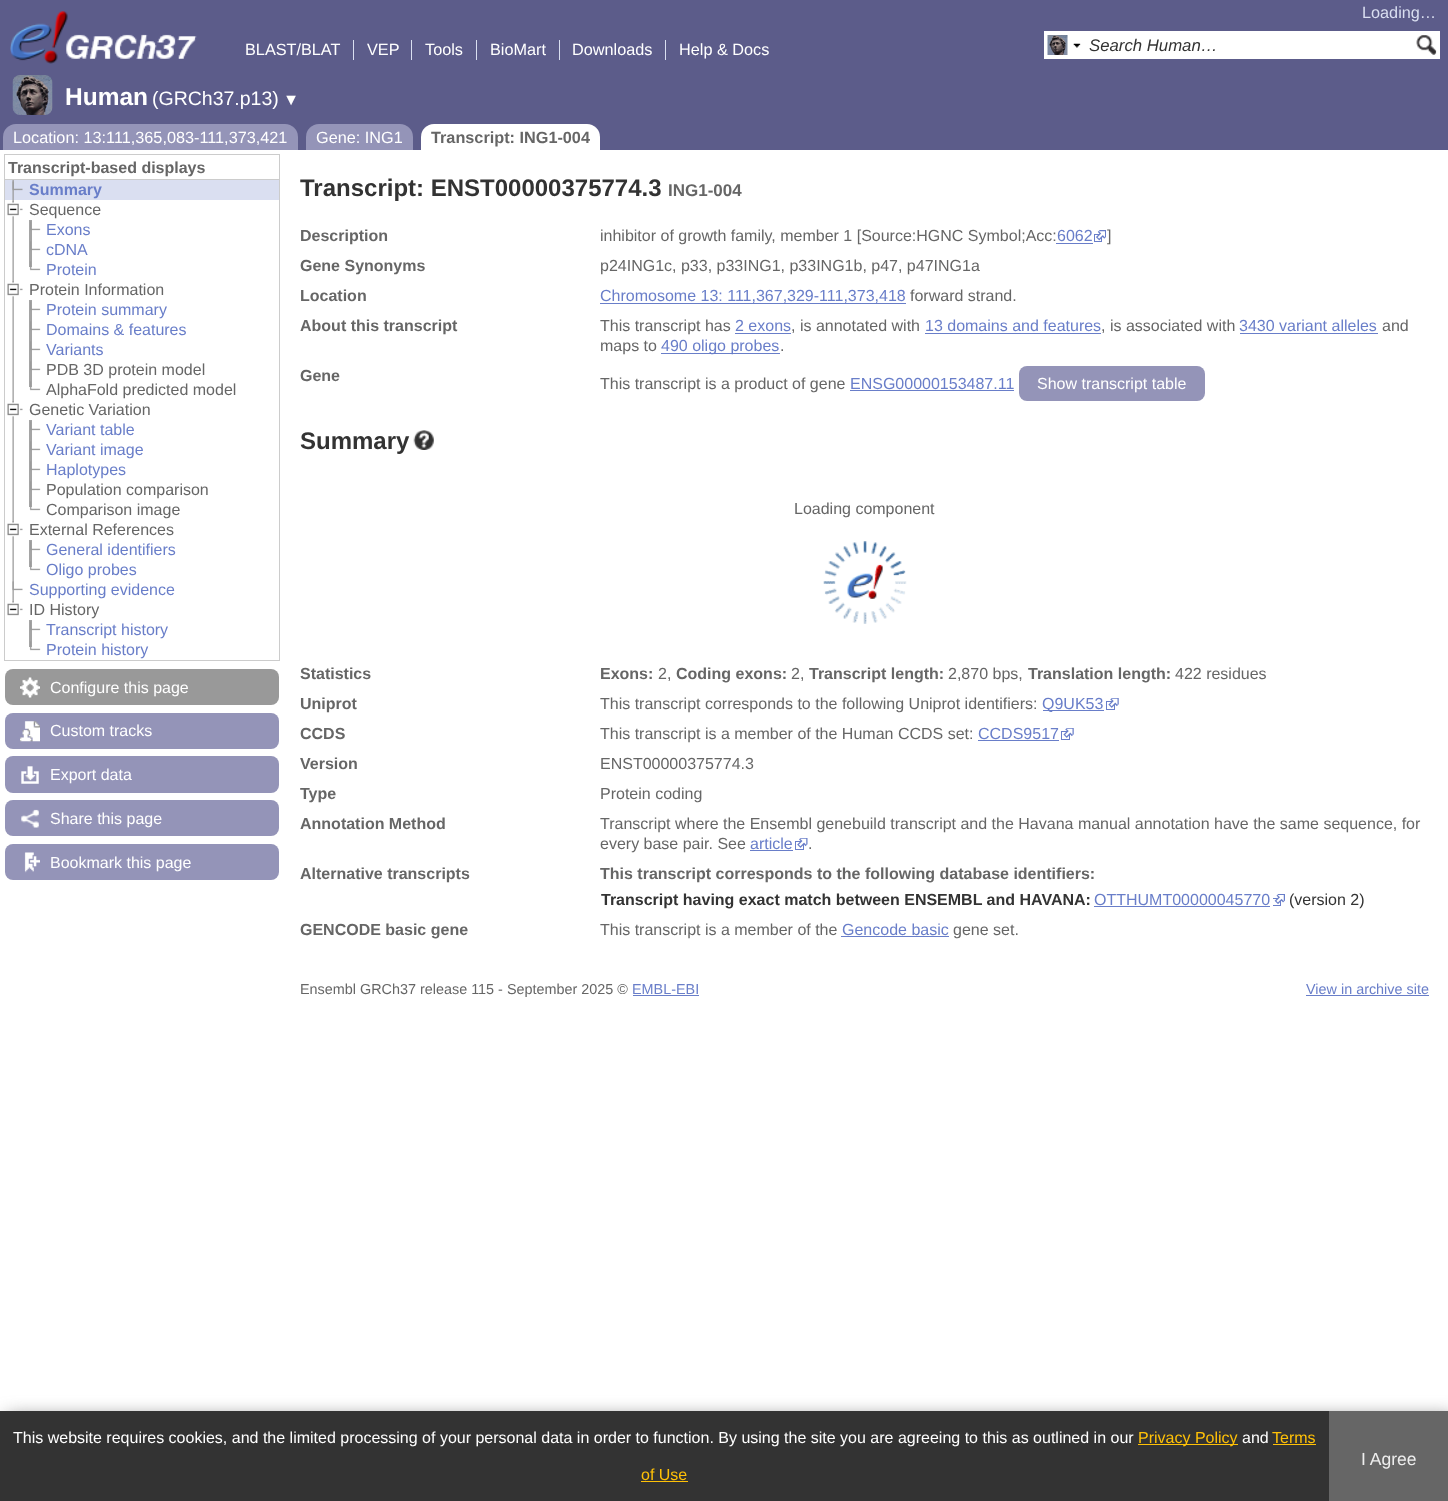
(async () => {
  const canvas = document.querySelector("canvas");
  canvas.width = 1448;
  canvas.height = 1501;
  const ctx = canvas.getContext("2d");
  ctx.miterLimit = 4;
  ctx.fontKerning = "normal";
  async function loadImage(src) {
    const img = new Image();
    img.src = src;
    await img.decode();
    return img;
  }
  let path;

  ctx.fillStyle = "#ffffff";
  ctx.fillRect(0, 0, 1448, 1501);
  ctx.fillStyle = "#5c5c8a";
  ctx.fillRect(0, 0, 1448, 150);
  ctx.drawImage(await loadImage("img/1.png"), 10, 11, 187, 53);
  for (const [x, y, w, h, color] of [
    [353, 40, 1, 20, "#dadff1"],
    [411, 40, 1, 20, "#dadff1"],
    [476, 40, 1, 20, "#dadff1"],
    [559, 40, 1, 20, "#dadff1"],
    [665, 40, 1, 20, "#dadff1"],
    [1044, 31, 396, 28, "#ffffff"],
  ]) {
    ctx.fillStyle = color;
    ctx.fillRect(x, y, w, h);
  }
  ctx.drawImage(await loadImage("img/2.png"), 1047, 35, 21, 20);
  ctx.drawImage(await loadImage("img/3.png"), 1073, 43, 8, 5);
  ctx.drawImage(await loadImage("img/4.png"), 1416, 35, 21, 20);
  ctx.drawImage(await loadImage("img/5.png"), 12, 75, 41, 40);
  ctx.fillStyle = "#9494b8";
  ctx.beginPath();
  ctx.roundRect(3, 124, 295, 26, [13, 13, 0, 0]);
  ctx.fill();
  ctx.beginPath();
  ctx.roundRect(306, 124, 107, 26, [13, 13, 0, 0]);
  ctx.fill();
  ctx.fillStyle = "#ffffff";
  ctx.beginPath();
  ctx.roundRect(421, 124, 179, 26, [13, 13, 0, 0]);
  ctx.fill();
  for (const [x, y, w, h, color] of [
    [4, 154, 276, 1, "#cccccc"],
    [279, 154, 1, 25, "#cccccc"],
    [4, 154, 1, 25, "#cccccc"],
  ]) {
    ctx.fillStyle = color;
    ctx.fillRect(x, y, w, h);
  }
  ctx.strokeStyle = "#cccccc";
  ctx.strokeRect(4.5, 179.5, 275, 481);
  ctx.fillStyle = "#dadff1";
  ctx.fillRect(5, 180, 274, 20);
  ctx.drawImage(await loadImage("img/6.png"), 12, 180, 2, 20);
  ctx.drawImage(await loadImage("img/7.png"), 12, 181, 11, 10);
  ctx.drawImage(await loadImage("img/8.png"), 12, 200, 2, 20);
  ctx.drawImage(await loadImage("img/9.png"), 7, 201, 16, 16);
  ctx.drawImage(await loadImage("img/10.png"), 12, 220, 2, 60);
  ctx.fillStyle = "#a5a5a5";
  ctx.fillRect(29, 220, 3, 47);
  ctx.drawImage(await loadImage("img/11.png"), 30, 221, 11, 10);
  ctx.drawImage(await loadImage("img/11.png"), 30, 241, 11, 10);
  ctx.drawImage(await loadImage("img/12.png"), 29, 261, 12, 10);
  ctx.drawImage(await loadImage("img/8.png"), 12, 280, 2, 20);
  ctx.drawImage(await loadImage("img/9.png"), 7, 281, 16, 16);
  ctx.drawImage(await loadImage("img/13.png"), 12, 300, 2, 100);
  ctx.fillRect(29, 300, 3, 87);
  ctx.drawImage(await loadImage("img/11.png"), 30, 301, 11, 10);
  ctx.drawImage(await loadImage("img/11.png"), 30, 321, 11, 10);
  ctx.drawImage(await loadImage("img/11.png"), 30, 341, 11, 10);
  ctx.drawImage(await loadImage("img/11.png"), 30, 361, 11, 10);
  ctx.drawImage(await loadImage("img/12.png"), 29, 381, 12, 10);
  ctx.drawImage(await loadImage("img/8.png"), 12, 400, 2, 20);
  ctx.drawImage(await loadImage("img/9.png"), 7, 401, 16, 16);
  ctx.drawImage(await loadImage("img/13.png"), 12, 420, 2, 100);
  ctx.fillRect(29, 420, 3, 87);
  ctx.drawImage(await loadImage("img/11.png"), 30, 421, 11, 10);
  ctx.drawImage(await loadImage("img/11.png"), 30, 441, 11, 10);
  ctx.drawImage(await loadImage("img/11.png"), 30, 461, 11, 10);
  ctx.drawImage(await loadImage("img/11.png"), 30, 481, 11, 10);
  ctx.drawImage(await loadImage("img/12.png"), 29, 501, 12, 10);
  ctx.drawImage(await loadImage("img/8.png"), 12, 520, 2, 20);
  ctx.drawImage(await loadImage("img/9.png"), 7, 521, 16, 16);
  ctx.drawImage(await loadImage("img/14.png"), 12, 540, 2, 40);
  ctx.fillRect(29, 540, 3, 27);
  ctx.drawImage(await loadImage("img/11.png"), 30, 541, 11, 10);
  ctx.drawImage(await loadImage("img/12.png"), 29, 561, 12, 10);
  ctx.drawImage(await loadImage("img/8.png"), 12, 580, 2, 20);
  ctx.drawImage(await loadImage("img/15.png"), 12, 581, 11, 10);
  ctx.drawImage(await loadImage("img/16.png"), 12, 600, 2, 3);
  ctx.drawImage(await loadImage("img/17.png"), 7, 601, 16, 15);
  ctx.fillRect(29, 620, 3, 27);
  ctx.drawImage(await loadImage("img/11.png"), 30, 621, 11, 10);
  ctx.drawImage(await loadImage("img/12.png"), 29, 641, 12, 10);
  ctx.fillStyle = "#999999";
  ctx.beginPath();
  ctx.roundRect(5, 669, 274, 36, 8);
  ctx.fill();
  ctx.drawImage(await loadImage("img/18.png"), 20, 677, 20, 21);
  ctx.fillStyle = "#9494b8";
  ctx.beginPath();
  ctx.roundRect(5, 713, 274, 36, 8);
  ctx.fill();
  ctx.drawImage(await loadImage("img/19.png"), 20, 721, 20, 21);
  ctx.beginPath();
  ctx.roundRect(5, 756, 274, 37, 8);
  ctx.fill();
  ctx.drawImage(await loadImage("img/20.png"), 21, 766, 18, 18);
  ctx.beginPath();
  ctx.roundRect(5, 800, 274, 36, 8);
  ctx.fill();
  ctx.drawImage(await loadImage("img/21.png"), 21, 809, 18, 19);
  ctx.beginPath();
  ctx.roundRect(5, 844, 274, 36, 8);
  ctx.fill();
  ctx.drawImage(await loadImage("img/22.png"), 24, 852, 16, 21);
  ctx.fillStyle = "#697ec9";
  ctx.fillRect(1056, 243, 37, 1);
  ctx.drawImage(await loadImage("img/23.png"), 1094, 230, 12, 12);
  for (const [x, y, w, h, color] of [
    [600, 303, 306, 1, "#697ec9"],
    [735, 333, 56, 1, "#697ec9"],
    [925, 333, 176, 1, "#697ec9"],
    [1240, 333, 138, 1, "#697ec9"],
    [661, 353, 119, 1, "#697ec9"],
    [850, 390, 164, 1, "#697ec9"],
  ]) {
    ctx.fillStyle = color;
    ctx.fillRect(x, y, w, h);
  }
  ctx.fillStyle = "#9494b8";
  ctx.beginPath();
  ctx.roundRect(1019, 366, 186, 35, 8);
  ctx.fill();
  ctx.drawImage(await loadImage("img/24.png"), 413, 430, 21, 20);
  ctx.drawImage(await loadImage("img/25.png"), 823, 541, 84, 83);
  ctx.fillStyle = "#697ec9";
  ctx.fillRect(1043, 710, 61, 1);
  ctx.drawImage(await loadImage("img/26.png"), 1106, 698, 13, 12);
  ctx.fillRect(978, 740, 81, 1);
  ctx.drawImage(await loadImage("img/26.png"), 1061, 728, 13, 12);
  ctx.fillRect(750, 850, 43, 1);
  ctx.drawImage(await loadImage("img/27.png"), 795, 838, 13, 12);
  ctx.fillRect(1094, 906, 176, 1);
  ctx.drawImage(await loadImage("img/28.png"), 1273, 894, 12, 12);
  for (const [x, y, w, h, color] of [
    [841, 936, 108, 1, "#697ec9"],
    [633, 995, 66, 1, "#697ec9"],
    [1306, 995, 123, 1, "#697ec9"],
  ]) {
    ctx.fillStyle = color;
    ctx.fillRect(x, y, w, h);
  }
  ctx.save();
  path = new Path2D("M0 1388H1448V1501H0ZM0 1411H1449V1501H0Z");
  ctx.clip(path, "evenodd");
  ctx.fillStyle = "#666666";
  ctx.filter = "blur(9.5px)";
  ctx.beginPath();
  ctx.rect(6, 1418, 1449, 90);
  ctx.fill();
  ctx.filter = "none";
  ctx.restore();
  for (const [x, y, w, h, color] of [
    [0, 1411, 1329, 90, "rgba(0, 0, 0, 0.8)"],
    [1138, 1444, 100, 1, "#ffc107"],
    [1273, 1444, 43, 1, "#ffc107"],
    [641, 1481, 47, 1, "#ffc107"],
    [1329, 1411, 119, 90, "#666666"],
  ]) {
    ctx.fillStyle = color;
    ctx.fillRect(x, y, w, h);
  }
  ctx.font = "16.25px Liberation Sans";
  ctx.fillStyle = "#dadff1";
  ctx.fillText("Loading…", 1362, 18);
  ctx.fillStyle = "#ffffff";
  for (const [text, x, y] of [
    ["BLAST/BLAT", 245, 55],
    ["VEP", 367, 55],
    ["Tools", 425, 55],
    ["BioMart", 490, 55],
    ["Downloads", 572, 55],
    ["Help & Docs", 679, 55],
  ]) {
    ctx.fillText(text, x, y);
  }
  ctx.font = "italic 16.75px Liberation Sans";
  ctx.fillStyle = "#333333";
  ctx.fillText("Search Human…", 1089, 51);
  ctx.font = "bold 24.5px Liberation Sans";
  ctx.fillStyle = "#ffffff";
  ctx.fillText("Human", 65, 105);
  ctx.font = "19.5px Liberation Sans";
  ctx.fillText("(GRCh37.p13)", 152, 105);
  ctx.font = "16.25px Liberation Sans";
  for (const [text, x, y] of [
    ["▼", 283, 105],
    ["Location: 13:111,365,083-111,373,421", 13, 143],
    ["Gene: ING1", 316, 143],
  ]) {
    ctx.fillText(text, x, y);
  }
  ctx.font = "bold 16.25px Liberation Sans";
  ctx.fillStyle = "#666666";
  ctx.fillText("Transcript: ING1-004", 431, 143);
  ctx.font = "bold 16px Liberation Sans";
  ctx.fillText("Transcript-based displays", 8, 173);
  ctx.fillStyle = "#697ec9";
  ctx.fillText("Summary", 29, 195);
  ctx.font = "16px Liberation Sans";
  ctx.fillStyle = "#666666";
  ctx.fillText("Sequence", 29, 215);
  ctx.fillStyle = "#697ec9";
  for (const [text, x, y] of [
    ["Exons", 46, 235],
    ["cDNA", 46, 255],
    ["Protein", 46, 275],
  ]) {
    ctx.fillText(text, x, y);
  }
  ctx.fillStyle = "#666666";
  ctx.fillText("Protein Information", 29, 295);
  ctx.fillStyle = "#697ec9";
  for (const [text, x, y] of [
    ["Protein summary", 46, 315],
    ["Domains & features", 46, 335],
    ["Variants", 46, 355],
  ]) {
    ctx.fillText(text, x, y);
  }
  ctx.fillStyle = "#666666";
  for (const [text, x, y] of [
    ["PDB 3D protein model", 46, 375],
    ["AlphaFold predicted model", 46, 395],
    ["Genetic Variation", 29, 415],
  ]) {
    ctx.fillText(text, x, y);
  }
  ctx.fillStyle = "#697ec9";
  for (const [text, x, y] of [
    ["Variant table", 46, 435],
    ["Variant image", 46, 455],
    ["Haplotypes", 46, 475],
  ]) {
    ctx.fillText(text, x, y);
  }
  ctx.fillStyle = "#666666";
  for (const [text, x, y] of [
    ["Population comparison", 46, 495],
    ["Comparison image", 46, 515],
    ["External References", 29, 535],
  ]) {
    ctx.fillText(text, x, y);
  }
  ctx.fillStyle = "#697ec9";
  for (const [text, x, y] of [
    ["General identifiers", 46, 555],
    ["Oligo probes", 46, 575],
    ["Supporting evidence", 29, 595],
  ]) {
    ctx.fillText(text, x, y);
  }
  ctx.fillStyle = "#666666";
  ctx.fillText("ID History", 29, 615);
  ctx.fillStyle = "#697ec9";
  ctx.fillText("Transcript history", 46, 635);
  ctx.fillText("Protein history", 46, 655);
  ctx.fillStyle = "#ffffff";
  for (const [text, x, y] of [
    ["Configure this page", 50, 693],
    ["Custom tracks", 50, 736],
    ["Export data", 50, 780],
    ["Share this page", 50, 824],
    ["Bookmark this page", 50, 868],
  ]) {
    ctx.fillText(text, x, y);
  }
  ctx.font = "bold 24px Liberation Sans";
  ctx.fillStyle = "#333333";
  ctx.fillText("Transcript: ENST00000375774.3", 300, 196);
  ctx.font = "bold 17px Liberation Sans";
  ctx.fillStyle = "#666666";
  ctx.fillText("ING1-004", 668, 196);
  ctx.font = "bold 16px Liberation Sans";
  ctx.fillText("Description", 300, 241);
  ctx.font = "16px Liberation Sans";
  ctx.fillText("inhibitor of growth family, member 1 [Source:HGNC Symbol;Acc:", 600, 241);
  ctx.fillStyle = "#697ec9";
  ctx.fillText("6062", 1057, 241);
  ctx.fillStyle = "#666666";
  ctx.fillText("]", 1107, 241);
  ctx.font = "bold 16px Liberation Sans";
  ctx.fillText("Gene Synonyms", 300, 271);
  ctx.font = "16px Liberation Sans";
  ctx.fillText("p24ING1c, p33, p33ING1, p33ING1b, p47, p47ING1a", 600, 271);
  ctx.font = "bold 16px Liberation Sans";
  ctx.fillText("Location", 300, 301);
  ctx.font = "16px Liberation Sans";
  ctx.fillStyle = "#697ec9";
  ctx.fillText("Chromosome 13: 111,367,329-111,373,418", 600, 301);
  ctx.fillStyle = "#666666";
  ctx.fillText("forward strand.", 910, 301);
  ctx.font = "bold 16px Liberation Sans";
  ctx.fillText("About this transcript", 300, 331);
  ctx.font = "16px Liberation Sans";
  ctx.fillText("This transcript has", 600, 331);
  ctx.fillStyle = "#697ec9";
  ctx.fillText("2 exons", 735, 331);
  ctx.fillStyle = "#666666";
  ctx.fillText(", is annotated with", 791, 331);
  ctx.fillStyle = "#697ec9";
  ctx.fillText("13 domains and features", 925, 331);
  ctx.fillStyle = "#666666";
  ctx.fillText(", is associated with", 1101, 331);
  ctx.fillStyle = "#697ec9";
  ctx.fillText("3430 variant alleles", 1239, 331);
  ctx.fillStyle = "#666666";
  ctx.fillText("and", 1382, 331);
  ctx.fillText("maps to", 600, 351);
  ctx.fillStyle = "#697ec9";
  ctx.fillText("490 oligo probes", 661, 351);
  ctx.fillStyle = "#666666";
  ctx.fillText(".", 780, 351);
  ctx.font = "bold 16px Liberation Sans";
  ctx.fillText("Gene", 300, 381);
  ctx.font = "16px Liberation Sans";
  ctx.fillText("This transcript is a product of gene", 600, 389);
  ctx.fillStyle = "#697ec9";
  ctx.fillText("ENSG00000153487.11", 850, 389);
  ctx.fillStyle = "#ffffff";
  ctx.fillText("Show transcript table", 1037, 389);
  ctx.font = "bold 24px Liberation Sans";
  ctx.fillStyle = "#333333";
  ctx.fillText("Summary", 300, 449);
  ctx.font = "16px Liberation Sans";
  ctx.fillStyle = "#666666";
  ctx.fillText("Loading component", 794, 514);
  ctx.font = "bold 16px Liberation Sans";
  ctx.fillText("Statistics", 300, 679);
  ctx.fillText("Exons:", 600, 679);
  ctx.font = "16px Liberation Sans";
  ctx.fillText("2,", 658, 679);
  ctx.font = "bold 16px Liberation Sans";
  ctx.fillText("Coding exons:", 676, 679);
  ctx.font = "16px Liberation Sans";
  ctx.fillText("2,", 791, 679);
  ctx.font = "bold 16px Liberation Sans";
  ctx.fillText("Transcript length:", 809, 679);
  ctx.font = "16px Liberation Sans";
  ctx.fillText("2,870 bps,", 948, 679);
  ctx.font = "bold 16px Liberation Sans";
  ctx.fillText("Translation length:", 1028, 679);
  ctx.font = "16px Liberation Sans";
  ctx.fillText("422 residues", 1175, 679);
  ctx.font = "bold 16px Liberation Sans";
  ctx.fillText("Uniprot", 300, 709);
  ctx.font = "16px Liberation Sans";
  ctx.fillText("This transcript corresponds to the following Uniprot identifiers:", 600, 709);
  ctx.fillStyle = "#697ec9";
  ctx.fillText("Q9UK53", 1042, 709);
  ctx.font = "bold 16px Liberation Sans";
  ctx.fillStyle = "#666666";
  ctx.fillText("CCDS", 300, 739);
  ctx.font = "16px Liberation Sans";
  ctx.fillText("This transcript is a member of the Human CCDS set:", 600, 739);
  ctx.fillStyle = "#697ec9";
  ctx.fillText("CCDS9517", 978, 739);
  ctx.font = "bold 16px Liberation Sans";
  ctx.fillStyle = "#666666";
  ctx.fillText("Version", 300, 769);
  ctx.font = "16px Liberation Sans";
  ctx.fillText("ENST00000375774.3", 600, 769);
  ctx.font = "bold 16px Liberation Sans";
  ctx.fillText("Type", 300, 799);
  ctx.font = "16px Liberation Sans";
  ctx.fillText("Protein coding", 600, 799);
  ctx.font = "bold 16px Liberation Sans";
  ctx.fillText("Annotation Method", 300, 829);
  ctx.font = "16px Liberation Sans";
  ctx.fillText("Transcript where the Ensembl genebuild transcript and the Havana manual annotation have the same sequence, for", 600, 829);
  ctx.fillText("every base pair. See", 600, 849);
  ctx.fillStyle = "#697ec9";
  ctx.fillText("article", 750, 849);
  ctx.fillStyle = "#666666";
  ctx.fillText(".", 808, 849);
  ctx.font = "bold 16px Liberation Sans";
  ctx.fillText("Alternative transcripts", 300, 879);
  ctx.fillText("This transcript corresponds to the following database identifiers:", 600, 879);
  ctx.fillStyle = "#333333";
  ctx.fillText("Transcript having exact match between ENSEMBL and HAVANA:", 601, 905);
  ctx.font = "16px Liberation Sans";
  ctx.fillStyle = "#697ec9";
  ctx.fillText("OTTHUMT00000045770", 1094, 905);
  ctx.fillStyle = "#333333";
  ctx.fillText("(version 2)", 1289, 905);
  ctx.font = "bold 16px Liberation Sans";
  ctx.fillStyle = "#666666";
  ctx.fillText("GENCODE basic gene", 300, 935);
  ctx.font = "16px Liberation Sans";
  ctx.fillText("This transcript is a member of the", 600, 935);
  ctx.fillStyle = "#697ec9";
  ctx.fillText("Gencode basic", 842, 935);
  ctx.fillStyle = "#666666";
  ctx.fillText("gene set.", 953, 935);
  ctx.font = "14.4px Liberation Sans";
  ctx.fillText("Ensembl GRCh37 release 115 - September 2025 ©", 300, 994);
  ctx.fillStyle = "#697ec9";
  ctx.fillText("EMBL-EBI", 632, 994);
  ctx.fillText("View in archive site", 1306, 994);
  ctx.font = "16px Liberation Sans";
  ctx.fillStyle = "#ffffff";
  ctx.fillText("This website requires cookies, and the limited processing of your personal data in order to function. By using the site you are agreeing to this as outlined in our", 13, 1443);
  ctx.fillStyle = "#ffc107";
  ctx.fillText("Privacy Policy", 1138, 1443);
  ctx.fillStyle = "#ffffff";
  ctx.fillText("and", 1242, 1443);
  ctx.fillStyle = "#ffc107";
  ctx.fillText("Terms", 1272, 1443);
  ctx.fillText("of Use", 641, 1480);
  ctx.font = "17.5px Liberation Sans";
  ctx.fillStyle = "#eeeeee";
  ctx.fillText("I Agree", 1361, 1465);
})();
